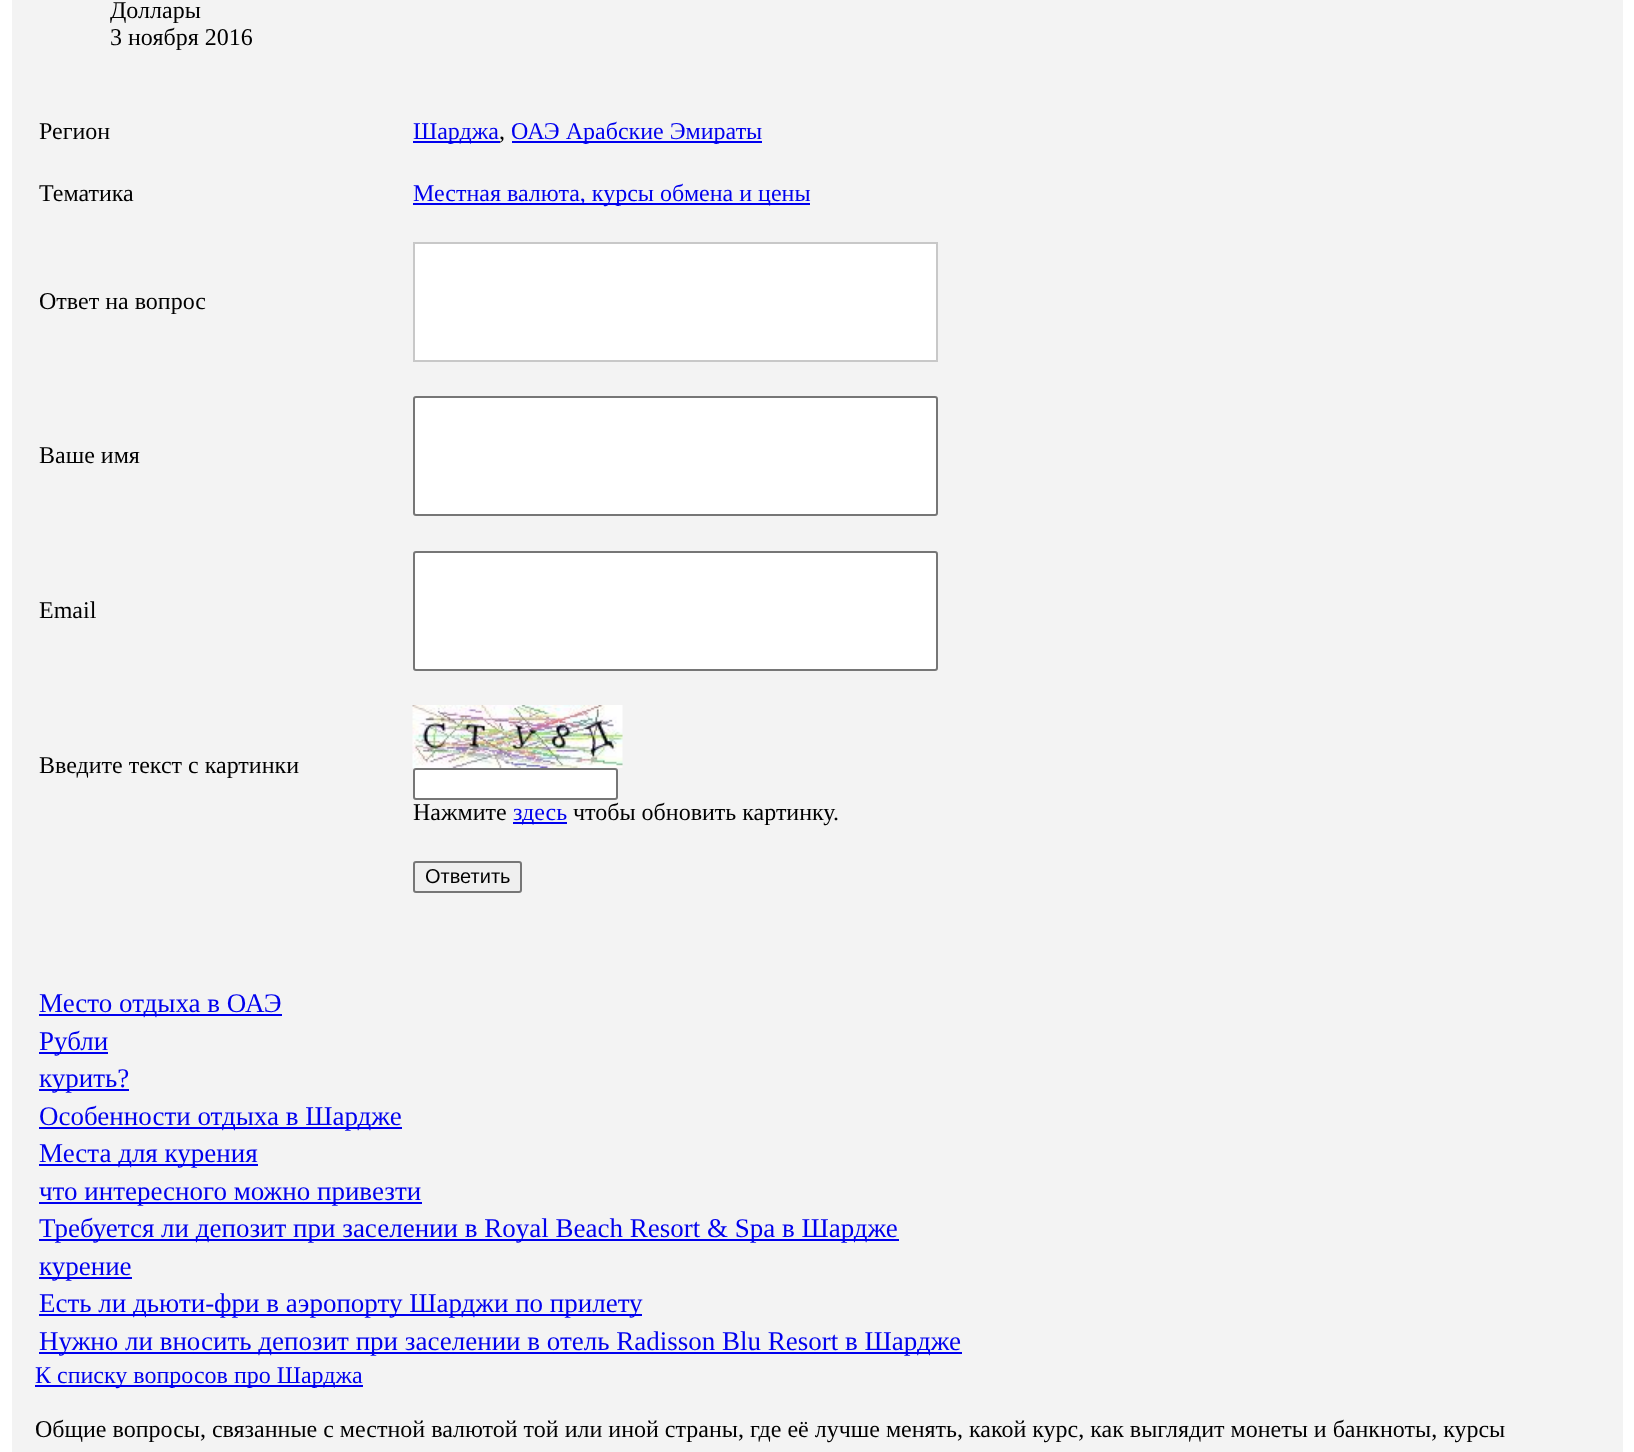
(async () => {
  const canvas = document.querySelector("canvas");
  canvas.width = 1634;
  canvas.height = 1452;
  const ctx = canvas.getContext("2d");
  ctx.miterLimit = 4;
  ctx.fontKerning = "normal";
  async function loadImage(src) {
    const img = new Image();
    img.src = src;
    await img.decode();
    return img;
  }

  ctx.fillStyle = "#ffffff";
  ctx.fillRect(0, 0, 1634, 1452);
  for (const [x, y, w, h, color] of [
    [12, 0, 1611, 1452, "#f3f3f3"],
    [413, 141, 87, 2, "#0000ee"],
    [512, 141, 250, 2, "#0000ee"],
    [413, 203, 397, 2, "#0000ee"],
  ]) {
    ctx.fillStyle = color;
    ctx.fillRect(x, y, w, h);
  }
  ctx.fillStyle = "#ffffff";
  ctx.beginPath();
  ctx.rect(414, 243, 523, 118);
  ctx.fill();
  ctx.strokeStyle = "#c8c8c8";
  ctx.lineWidth = 2;
  ctx.stroke();
  ctx.beginPath();
  ctx.roundRect(414, 397, 523, 118, 2);
  ctx.fill();
  ctx.strokeStyle = "#767676";
  ctx.stroke();
  ctx.beginPath();
  ctx.roundRect(414, 552, 523, 118, 2);
  ctx.fill();
  ctx.stroke();
  ctx.drawImage(await loadImage("img/1.png"), 412, 705, 211, 63);
  ctx.beginPath();
  ctx.roundRect(414, 769, 203, 30, 2);
  ctx.fill();
  ctx.stroke();
  ctx.fillStyle = "#0000ee";
  ctx.fillRect(513, 822, 54, 2);
  ctx.fillStyle = "#efefef";
  ctx.beginPath();
  ctx.roundRect(414, 862, 107, 30, 2);
  ctx.fill();
  ctx.stroke();
  for (const [x, y, w, h, color] of [
    [39, 1014, 243, 2, "#0000ee"],
    [39, 1052, 69, 2, "#0000ee"],
    [39, 1089, 90, 2, "#0000ee"],
    [39, 1127, 363, 2, "#0000ee"],
    [39, 1164, 219, 2, "#0000ee"],
    [39, 1202, 383, 2, "#0000ee"],
    [39, 1239, 860, 2, "#0000ee"],
    [39, 1277, 93, 2, "#0000ee"],
    [39, 1314, 603, 2, "#0000ee"],
    [39, 1352, 923, 2, "#0000ee"],
    [35, 1385, 328, 2, "#0000ee"],
  ]) {
    ctx.fillStyle = color;
    ctx.fillRect(x, y, w, h);
  }
  ctx.font = "24px Liberation Serif";
  ctx.fillStyle = "#000000";
  for (const [text, x, y] of [
    ["Доллары", 110, 18],
    ["3 ноября 2016", 110, 45],
    ["Регион", 39, 139],
  ]) {
    ctx.fillText(text, x, y);
  }
  ctx.fillStyle = "#0000ee";
  ctx.fillText("Шарджа", 413, 139);
  ctx.fillStyle = "#000000";
  ctx.fillText(",", 499, 139);
  ctx.fillStyle = "#0000ee";
  ctx.fillText("ОАЭ Арабские Эмираты", 511, 139);
  ctx.fillStyle = "#000000";
  ctx.fillText("Тематика", 39, 201);
  ctx.fillStyle = "#0000ee";
  ctx.fillText("Местная валюта, курсы обмена и цены", 413, 201);
  ctx.fillStyle = "#000000";
  for (const [text, x, y] of [
    ["Ответ на вопрос", 39, 309],
    ["Ваше имя", 39, 463],
    ["Email", 39, 618],
    ["Введите текст с картинки", 39, 773],
    ["Нажмите", 413, 820],
  ]) {
    ctx.fillText(text, x, y);
  }
  ctx.fillStyle = "#0000ee";
  ctx.fillText("здесь", 513, 820);
  ctx.fillStyle = "#000000";
  ctx.fillText("чтобы обновить картинку.", 573, 820);
  ctx.font = "20px Liberation Sans";
  ctx.fillText("Ответить", 425, 883);
  ctx.font = "27px Liberation Serif";
  ctx.fillStyle = "#0000ee";
  for (const [text, x, y] of [
    ["Место отдыха в ОАЭ", 39, 1012],
    ["Рубли", 39, 1050],
    ["курить?", 39, 1087],
    ["Особенности отдыха в Шардже", 39, 1125],
    ["Места для курения", 39, 1162],
    ["что интересного можно привезти", 39, 1200],
    ["Требуется ли депозит при заселении в Royal Beach Resort & Spa в Шардже", 39, 1237],
    ["курение", 39, 1275],
    ["Есть ли дьюти-фри в аэропорту Шарджи по прилету", 39, 1312],
    ["Нужно ли вносить депозит при заселении в отель Radisson Blu Resort в Шардже", 39, 1350],
  ]) {
    ctx.fillText(text, x, y);
  }
  ctx.font = "24px Liberation Serif";
  ctx.fillText("К списку вопросов про Шарджа", 35, 1383);
  ctx.fillStyle = "#000000";
  ctx.fillText("Общие вопросы, связанные с местной валютой той или иной страны, где её лучше менять, какой курс, как выглядит монеты и банкноты, курсы", 35, 1437);
})();
